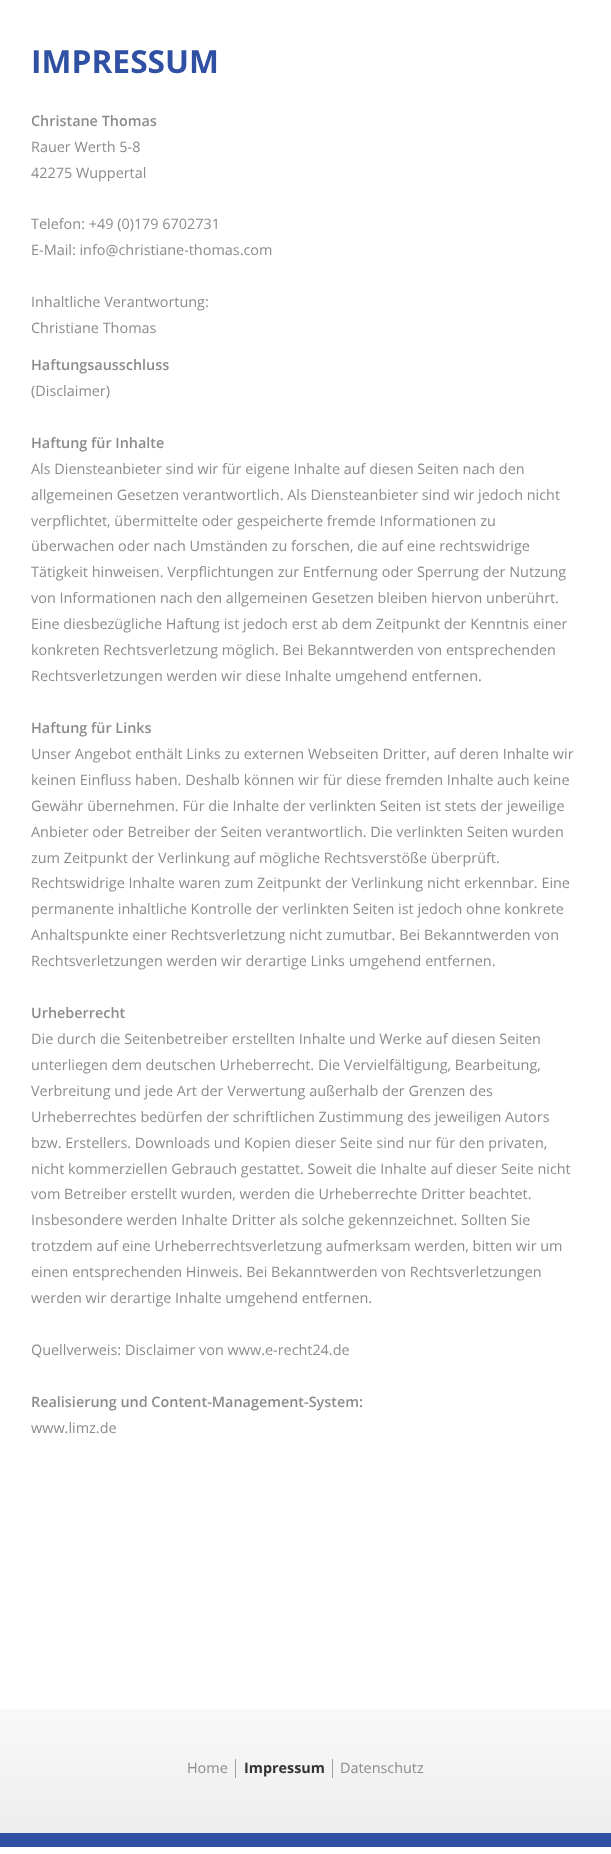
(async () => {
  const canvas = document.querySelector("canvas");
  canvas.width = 611;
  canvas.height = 1854;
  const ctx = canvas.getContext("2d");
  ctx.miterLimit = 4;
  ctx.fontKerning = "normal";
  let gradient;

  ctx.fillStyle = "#ffffff";
  ctx.fillRect(0, 0, 611, 1854);
  gradient = ctx.createLinearGradient(306, 1709, 306, 1847);
  gradient.addColorStop(0, "#f9f9f9");
  gradient.addColorStop(1, "#ececec");
  ctx.fillStyle = gradient;
  ctx.fillRect(0, 1709, 611, 124);
  for (const [x, y, w, h, color] of [
    [235, 1759, 1, 19, "#a2a2a2"],
    [332, 1759, 1, 19, "#a2a2a2"],
    [0, 1833, 611, 14, "#3050a4"],
  ]) {
    ctx.fillStyle = color;
    ctx.fillRect(x, y, w, h);
  }
  ctx.font = "bold 31.75px Open Sans";
  ctx.fillText("IMPRESSUM", 31, 73);
  ctx.font = "600 14.4px Open Sans";
  ctx.fillStyle = "#8c8c8c";
  ctx.fillText("Christane Thomas", 31, 126);
  ctx.font = "14.4px Open Sans";
  for (const [text, x, y] of [
    ["Rauer Werth 5-8", 31, 152],
    ["42275 Wuppertal", 31, 178],
    ["Telefon: +49 (0)179 6702731", 31, 229],
    ["E-Mail: info@christiane-thomas.com", 31, 255],
    ["Inhaltliche Verantwortung:", 31, 307],
    ["Christiane Thomas", 31, 333],
  ]) {
    ctx.fillText(text, x, y);
  }
  ctx.font = "600 14.4px Open Sans";
  ctx.fillText("Haftungsausschluss", 31, 370);
  ctx.font = "14.4px Open Sans";
  ctx.fillText("(Disclaimer)", 31, 396);
  ctx.font = "600 14.4px Open Sans";
  ctx.fillText("Haftung für Inhalte", 31, 448);
  ctx.font = "14.4px Open Sans";
  for (const [text, x, y] of [
    ["Als Diensteanbieter sind wir für eigene Inhalte auf diesen Seiten nach den", 31, 474],
    ["allgemeinen Gesetzen verantwortlich. Als Diensteanbieter sind wir jedoch nicht", 31, 500],
    ["verpflichtet, übermittelte oder gespeicherte fremde Informationen zu", 31, 526],
    ["überwachen oder nach Umständen zu forschen, die auf eine rechtswidrige", 31, 551],
    ["Tätigkeit hinweisen. Verpflichtungen zur Entfernung oder Sperrung der Nutzung", 31, 577],
    ["von Informationen nach den allgemeinen Gesetzen bleiben hiervon unberührt.", 31, 603],
    ["Eine diesbezügliche Haftung ist jedoch erst ab dem Zeitpunkt der Kenntnis einer", 31, 629],
    ["konkreten Rechtsverletzung möglich. Bei Bekanntwerden von entsprechenden", 31, 655],
    ["Rechtsverletzungen werden wir diese Inhalte umgehend entfernen.", 31, 681],
  ]) {
    ctx.fillText(text, x, y);
  }
  ctx.font = "600 14.4px Open Sans";
  ctx.fillText("Haftung für Links", 31, 733);
  ctx.font = "14.4px Open Sans";
  for (const [text, x, y] of [
    ["Unser Angebot enthält Links zu externen Webseiten Dritter, auf deren Inhalte wir", 31, 759],
    ["keinen Einfluss haben. Deshalb können wir für diese fremden Inhalte auch keine", 31, 785],
    ["Gewähr übernehmen. Für die Inhalte der verlinkten Seiten ist stets der jeweilige", 31, 811],
    ["Anbieter oder Betreiber der Seiten verantwortlich. Die verlinkten Seiten wurden", 31, 837],
    ["zum Zeitpunkt der Verlinkung auf mögliche Rechtsverstöße überprüft.", 31, 863],
    ["Rechtswidrige Inhalte waren zum Zeitpunkt der Verlinkung nicht erkennbar. Eine", 31, 888],
    ["permanente inhaltliche Kontrolle der verlinkten Seiten ist jedoch ohne konkrete", 31, 914],
    ["Anhaltspunkte einer Rechtsverletzung nicht zumutbar. Bei Bekanntwerden von", 31, 940],
    ["Rechtsverletzungen werden wir derartige Links umgehend entfernen.", 31, 966],
  ]) {
    ctx.fillText(text, x, y);
  }
  ctx.font = "600 14.4px Open Sans";
  ctx.fillText("Urheberrecht", 31, 1018);
  ctx.font = "14.4px Open Sans";
  for (const [text, x, y] of [
    ["Die durch die Seitenbetreiber erstellten Inhalte und Werke auf diesen Seiten", 31, 1044],
    ["unterliegen dem deutschen Urheberrecht. Die Vervielfältigung, Bearbeitung,", 31, 1070],
    ["Verbreitung und jede Art der Verwertung außerhalb der Grenzen des", 31, 1096],
    ["Urheberrechtes bedürfen der schriftlichen Zustimmung des jeweiligen Autors", 31, 1122],
    ["bzw. Erstellers. Downloads und Kopien dieser Seite sind nur für den privaten,", 31, 1148],
    ["nicht kommerziellen Gebrauch gestattet. Soweit die Inhalte auf dieser Seite nicht", 31, 1174],
    ["vom Betreiber erstellt wurden, werden die Urheberrechte Dritter beachtet.", 31, 1199],
    ["Insbesondere werden Inhalte Dritter als solche gekennzeichnet. Sollten Sie", 31, 1225],
    ["trotzdem auf eine Urheberrechtsverletzung aufmerksam werden, bitten wir um", 31, 1251],
    ["einen entsprechenden Hinweis. Bei Bekanntwerden von Rechtsverletzungen", 31, 1277],
    ["werden wir derartige Inhalte umgehend entfernen.", 31, 1303],
    ["Quellverweis: Disclaimer von www.e-recht24.de", 31, 1355],
  ]) {
    ctx.fillText(text, x, y);
  }
  ctx.font = "600 14.4px Open Sans";
  ctx.fillText("Realisierung und Content-Management-System:", 31, 1407);
  ctx.font = "14.4px Open Sans";
  ctx.fillText("www.limz.de", 31, 1433);
  ctx.fillText("Home", 187, 1773);
  ctx.font = "bold 14.4px Open Sans";
  ctx.fillStyle = "#333333";
  ctx.fillText("Impressum", 244, 1773);
  ctx.font = "14.4px Open Sans";
  ctx.fillStyle = "#8c8c8c";
  ctx.fillText("Datenschutz", 340, 1773);
})();
